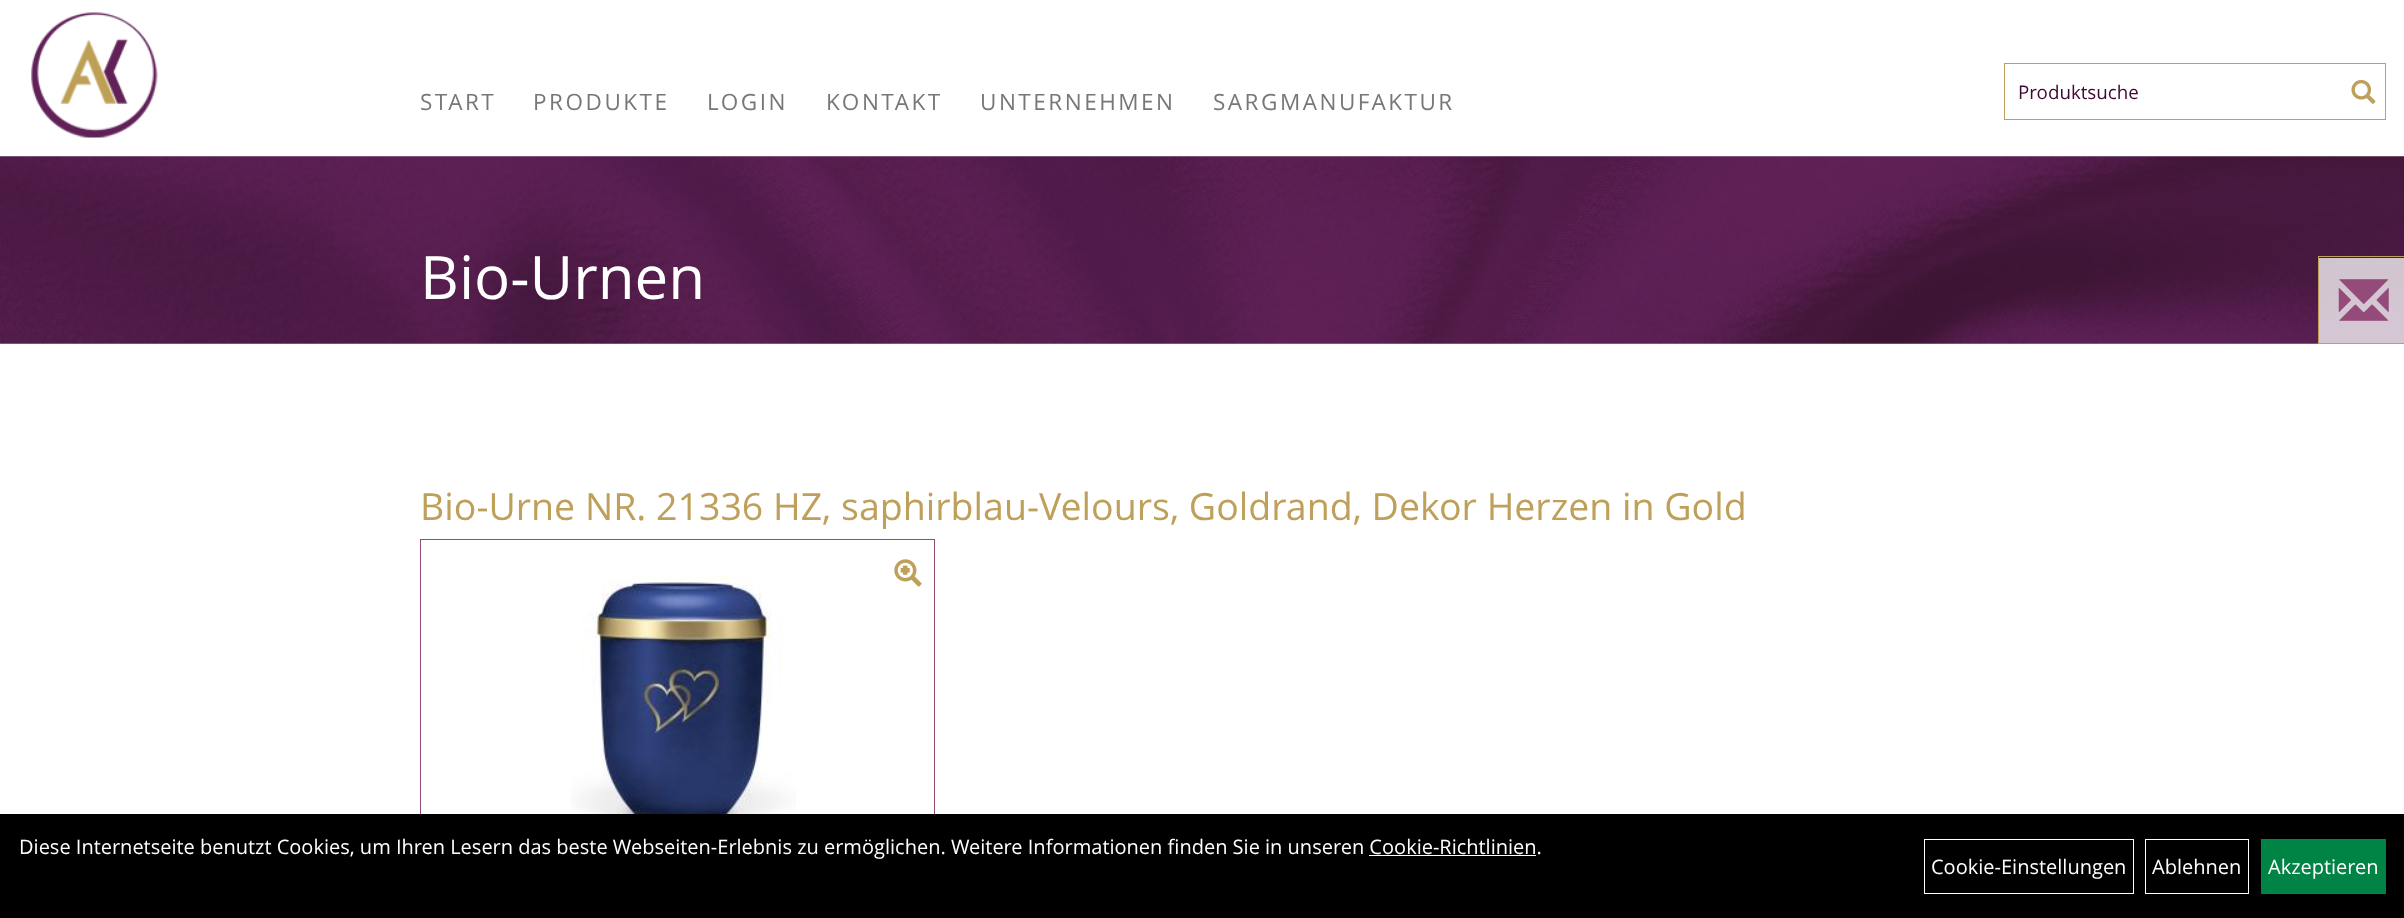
(async () => {
  const canvas = document.querySelector("canvas");
  canvas.width = 2404;
  canvas.height = 918;
  const ctx = canvas.getContext("2d");
  ctx.miterLimit = 4;
  ctx.fontKerning = "normal";
  async function loadImage(src) {
    const img = new Image();
    img.src = src;
    await img.decode();
    return img;
  }

  ctx.fillStyle = "#ffffff";
  ctx.fillRect(0, 0, 2404, 918);
  ctx.drawImage(await loadImage("img/1.png"), 31, 12, 127, 126);
  ctx.strokeStyle = "#bea05a";
  ctx.strokeRect(2004.5, 63.5, 381, 56);
  ctx.drawImage(await loadImage("img/2.png"), 2351, 79, 25, 25);
  ctx.drawImage(await loadImage("img/3.png"), 0, 156, 2404, 188);
  ctx.strokeStyle = "#954b7a";
  ctx.strokeRect(420.5, 539.5, 514, 309);
  ctx.drawImage(await loadImage("img/4.png"), 894, 559, 28, 28);
  ctx.drawImage(await loadImage("img/5.png"), 571, 576, 225, 238);
  for (const [x, y, w, h, color] of [
    [2319, 258, 85, 85, "rgba(255, 255, 255, 0.75)"],
    [2318, 256, 86, 1, "#bea05a"],
    [2318, 343, 86, 1, "#bea05a"],
    [2318, 256, 1, 88, "#bea05a"],
  ]) {
    ctx.fillStyle = color;
    ctx.fillRect(x, y, w, h);
  }
  ctx.drawImage(await loadImage("img/6.png"), 2338, 279, 51, 42);
  ctx.fillStyle = "#000000";
  ctx.fillRect(0, 814, 2404, 104);
  ctx.fillStyle = "#ffffff";
  ctx.fillRect(1369, 855, 167, 1);
  ctx.strokeStyle = "#ffffff";
  ctx.strokeRect(1924.5, 839.5, 209, 54);
  ctx.strokeRect(2145.5, 839.5, 103, 54);
  ctx.fillStyle = "#008446";
  ctx.fillRect(2261, 839, 125, 55);
  ctx.letterSpacing = "2.5px";
  ctx.font = "22.5px Open Sans";
  ctx.fillStyle = "#777777";
  for (const [text, x, y] of [
    ["START", 420, 110],
    ["PRODUKTE", 533, 110],
    ["LOGIN", 707, 110],
    ["KONTAKT", 826, 110],
    ["UNTERNEHMEN", 980, 110],
    ["SARGMANUFAKTUR", 1213, 110],
  ]) {
    ctx.fillText(text, x, y);
  }
  ctx.letterSpacing = "0px";
  ctx.font = "18.75px Open Sans";
  ctx.fillStyle = "#420633";
  ctx.fillText("Produktsuche", 2018, 99);
  ctx.font = "60px Open Sans";
  ctx.fillStyle = "#ffffff";
  ctx.fillText("Bio-Urnen", 420, 299);
  ctx.font = "37.5px Open Sans";
  ctx.fillStyle = "#bea05a";
  ctx.fillText("Bio-Urne NR. 21336 HZ, saphirblau-Velours, Goldrand, Dekor Herzen in Gold", 420, 520);
  ctx.font = "20px Open Sans";
  ctx.fillStyle = "#ffffff";
  for (const [text, x, y] of [
    ["Diese Internetseite benutzt Cookies, um Ihren Lesern das beste Webseiten-Erlebnis zu ermöglichen. Weitere Informationen finden Sie in unseren Cookie-Richtlinien.", 19, 854],
    ["Cookie-Einstellungen", 1931, 874],
    ["Ablehnen", 2152, 874],
    ["Akzeptieren", 2268, 874],
  ]) {
    ctx.fillText(text, x, y);
  }
})();
